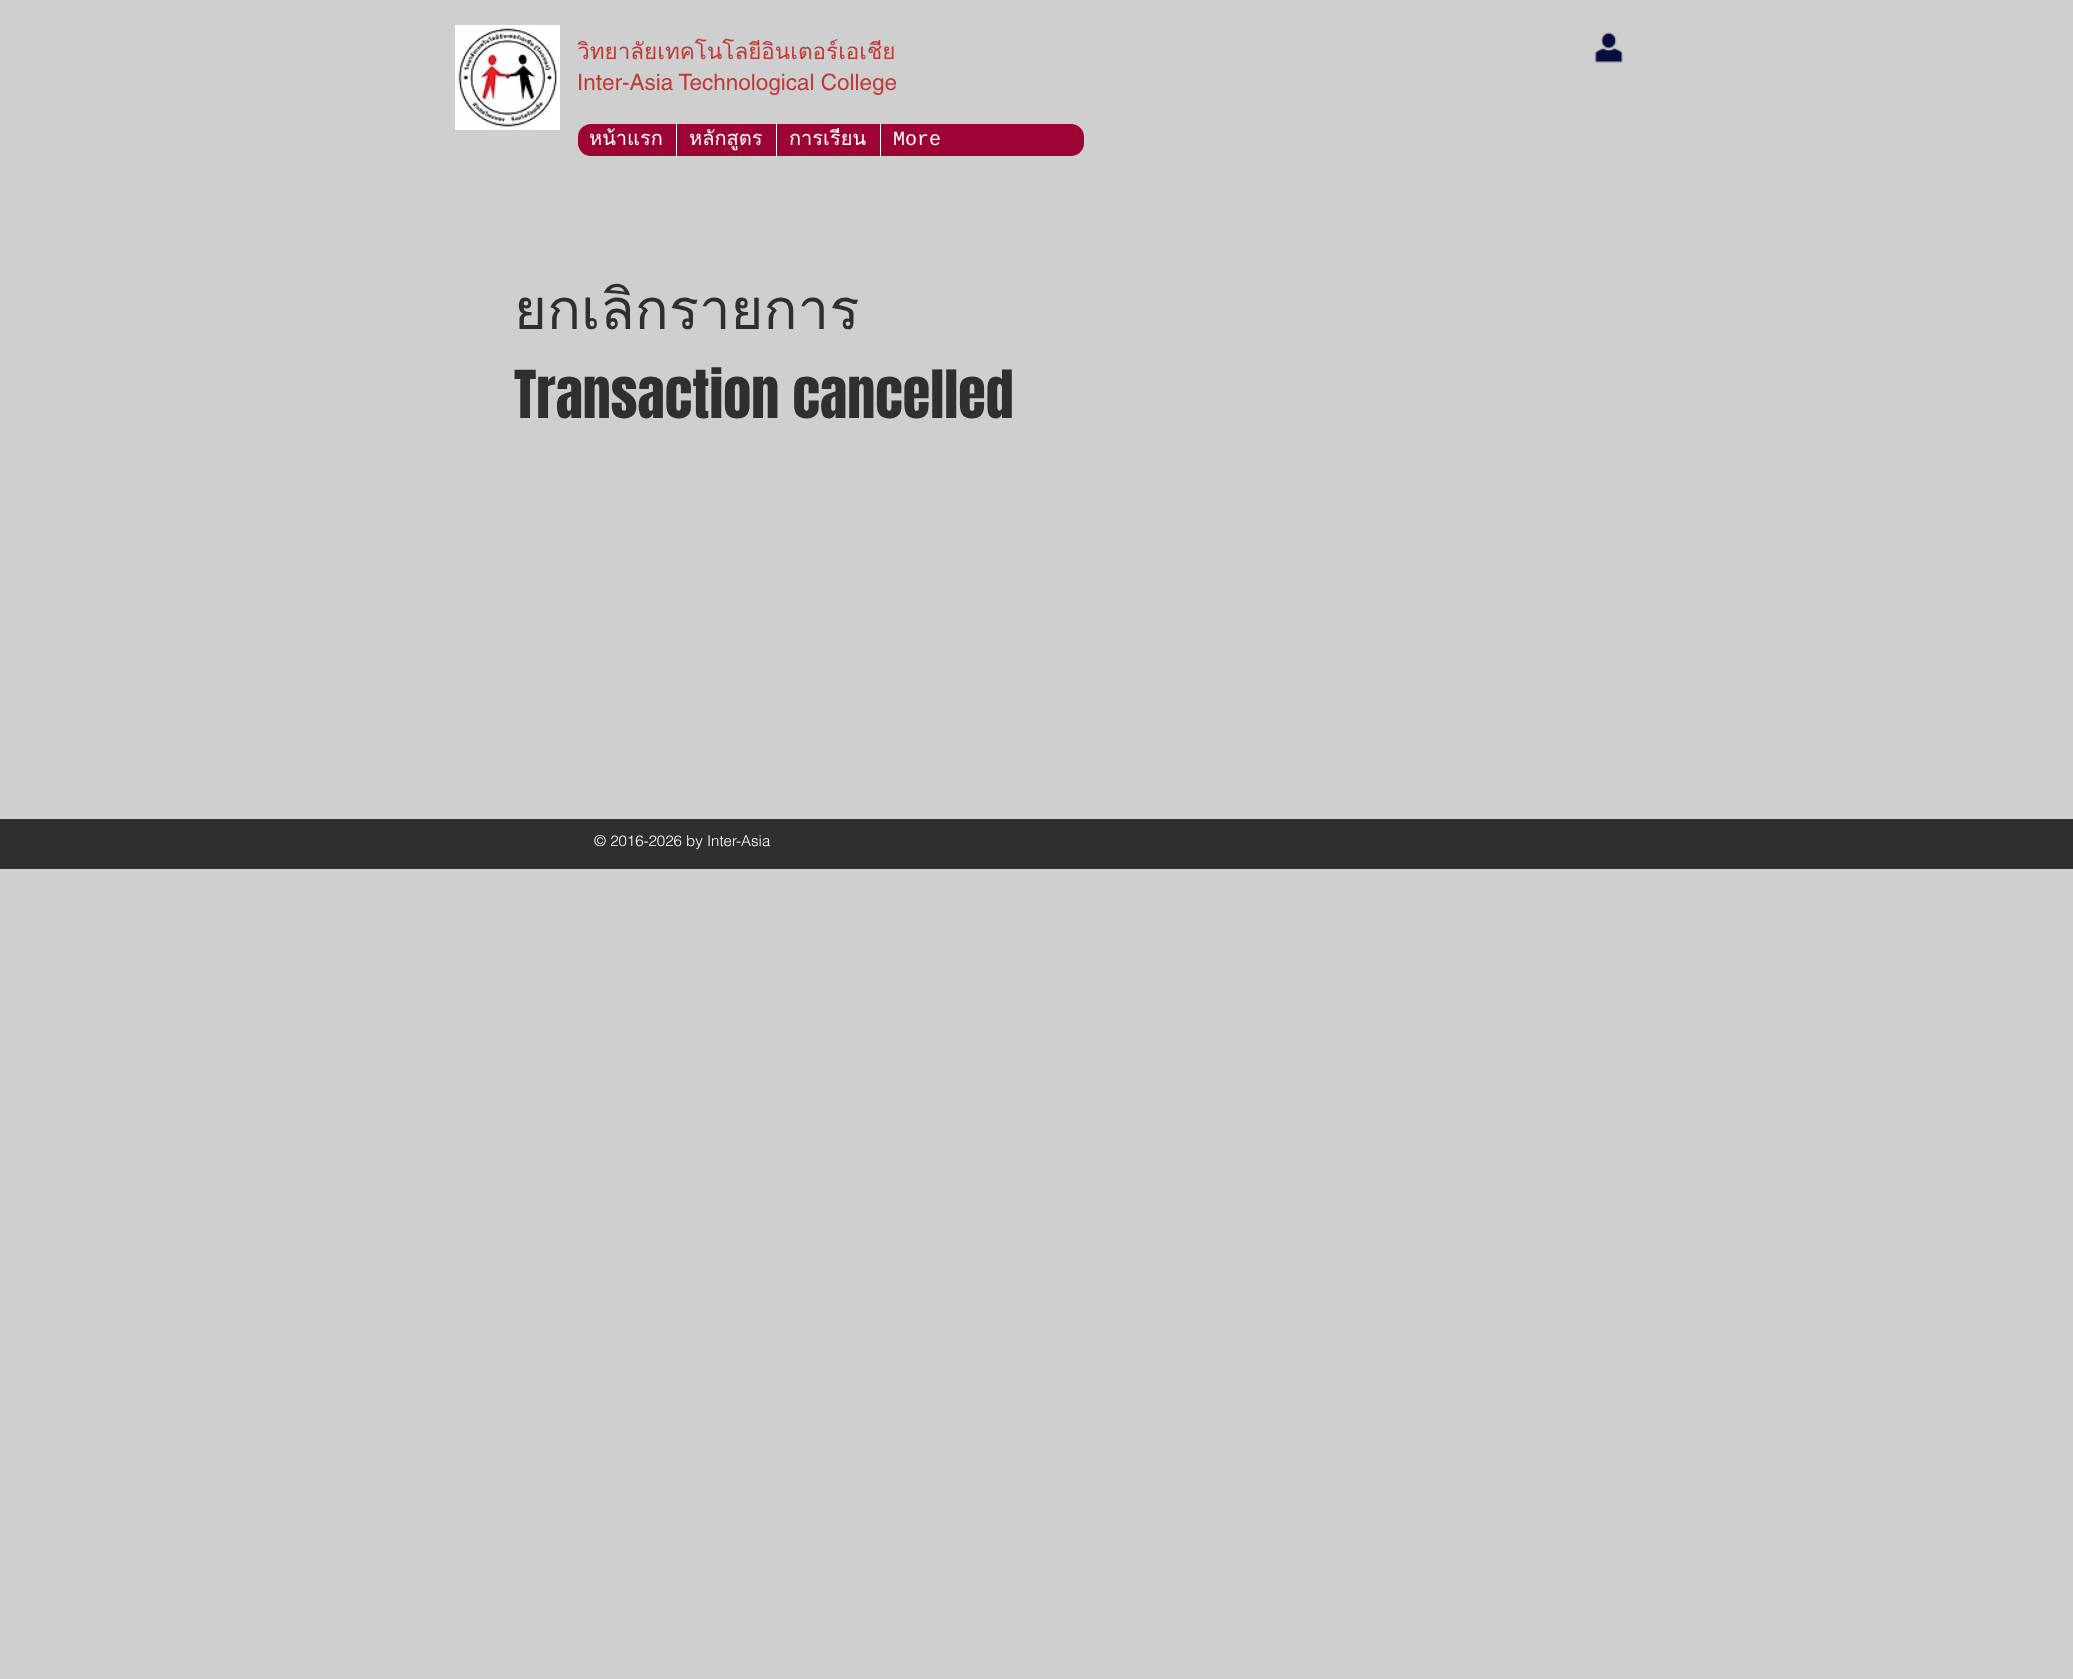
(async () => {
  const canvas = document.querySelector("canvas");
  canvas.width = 2073;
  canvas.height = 1679;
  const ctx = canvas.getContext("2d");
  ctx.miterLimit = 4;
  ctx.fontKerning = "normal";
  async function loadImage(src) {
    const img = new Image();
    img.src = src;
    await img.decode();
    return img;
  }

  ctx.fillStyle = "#cfcfcf";
  ctx.fillRect(0, 0, 2073, 1679);
  ctx.drawImage(await loadImage("img/1.png"), 455, 25, 105, 105);
  ctx.drawImage(await loadImage("img/2.png"), 1594, 32, 29, 31);
  ctx.fillStyle = "#9e0433";
  ctx.beginPath();
  ctx.roundRect(578, 124, 506, 32, 13);
  ctx.fill();
  for (const [x, y, w, h, color] of [
    [676, 124, 1, 32, "#ffffff"],
    [776, 124, 1, 32, "#ffffff"],
    [880, 124, 1, 32, "#ffffff"],
    [0, 819, 2073, 50, "#2f2f2f"],
  ]) {
    ctx.fillStyle = color;
    ctx.fillRect(x, y, w, h);
  }
  ctx.font = "22.5px Loma";
  ctx.fillStyle = "#c03a3a";
  ctx.fillText("วิทยาลัยเทคโนโลยีอินเตอร์เอเชีย", 577, 59);
  ctx.font = "22.5px helvetica";
  ctx.fillText("Inter-Asia Technological College", 577, 90);
  ctx.font = "20px Loma";
  ctx.fillStyle = "#ffffff";
  for (const [text, x, y] of [
    ["หน้าแรก", 589, 145],
    ["หลักสูตร", 689, 145],
    ["การเรียน", 789, 145],
  ]) {
    ctx.fillText(text, x, y);
  }
  ctx.font = "20px Liberation Mono";
  ctx.fillText("More", 893, 145);
  ctx.font = "56.25px Loma";
  ctx.fillStyle = "#2f2f2f";
  ctx.fillText("ยกเลิกรายการ", 514, 329);
  ctx.font = "56.25px Anton";
  ctx.fillText("Transaction cancelled", 514, 418);
  ctx.font = "300 15px helvetica";
  ctx.fillStyle = "#ffffff";
  ctx.fillText("© 2016-2026 by Inter-Asia", 594, 846);
})();
